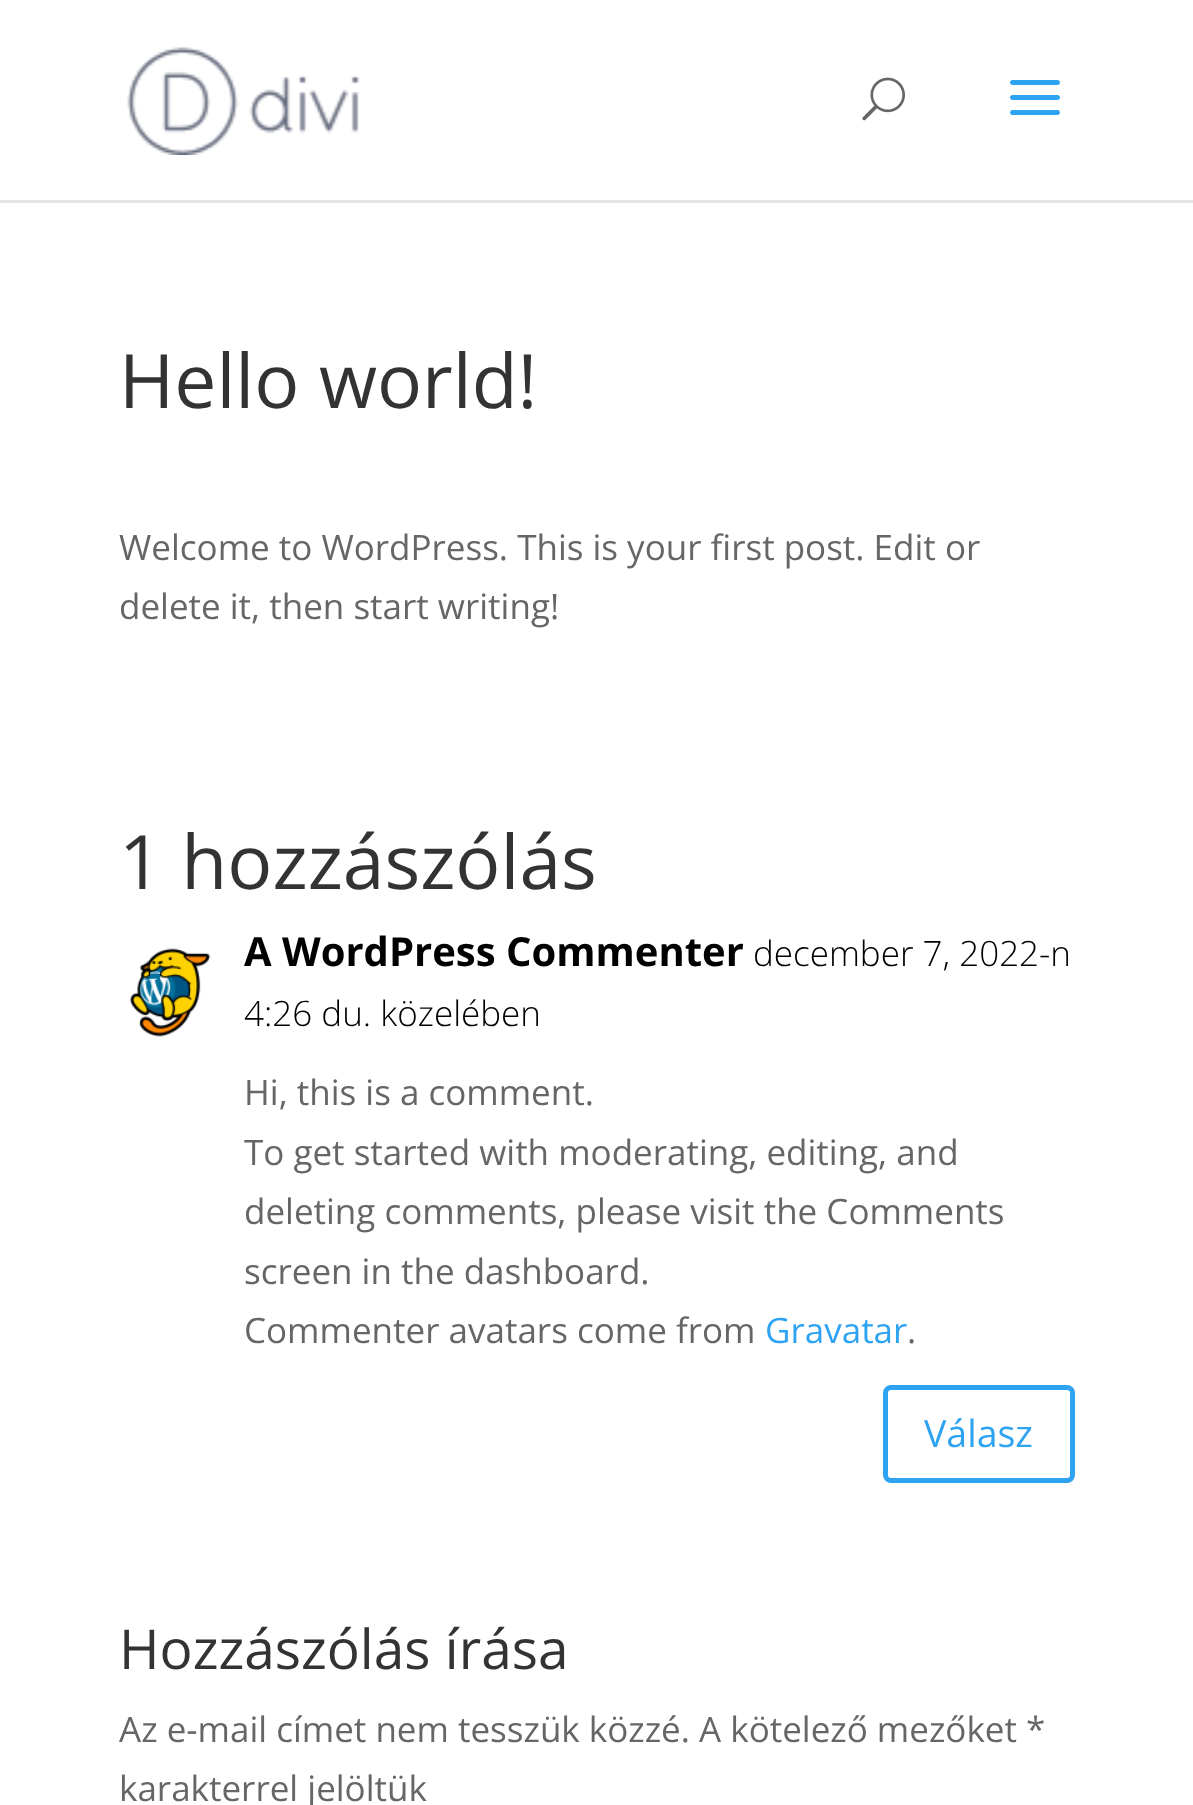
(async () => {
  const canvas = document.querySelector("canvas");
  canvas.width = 1193;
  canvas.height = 1805;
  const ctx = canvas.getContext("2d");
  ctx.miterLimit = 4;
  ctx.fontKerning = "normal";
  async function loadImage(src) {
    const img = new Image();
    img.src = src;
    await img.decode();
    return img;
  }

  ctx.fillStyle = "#ffffff";
  ctx.fillRect(0, 0, 1193, 1805);
  ctx.fillStyle = "#e6e6e6";
  ctx.fillRect(0, 200, 1193, 3);
  ctx.drawImage(await loadImage("img/1.png"), 127, 47, 233, 108);
  ctx.drawImage(await loadImage("img/2.png"), 862, 77, 43, 44);
  ctx.drawImage(await loadImage("img/3.png"), 1010, 80, 50, 35);
  ctx.drawImage(await loadImage("img/4.png"), 129, 948, 82, 89);
  ctx.beginPath();
  ctx.roundRect(885.5, 1387.5, 187, 93, 5.5);
  ctx.strokeStyle = "#2ea3f2";
  ctx.lineWidth = 5;
  ctx.stroke();
  ctx.font = "75px Open Sans";
  ctx.fillStyle = "#333333";
  ctx.fillText("Hello world!", 119, 408);
  ctx.font = "35px Open Sans";
  ctx.fillStyle = "#666666";
  ctx.fillText("Welcome to WordPress. This is your first post. Edit or", 119, 560);
  ctx.fillText("delete it, then start writing!", 119, 619);
  ctx.font = "75px Open Sans";
  ctx.fillStyle = "#333333";
  ctx.fillText("1 hozzászólás", 119, 889);
  ctx.font = "bold 40px Open Sans";
  ctx.fillStyle = "#000000";
  ctx.fillText("A WordPress Commenter", 244, 966);
  ctx.font = "300 35px Open Sans";
  ctx.fillText("december 7, 2022-n", 753, 966);
  ctx.fillText("4:26 du. közelében", 244, 1026);
  ctx.font = "35px Open Sans";
  ctx.fillStyle = "#666666";
  for (const [text, x, y] of [
    ["Hi, this is a comment.", 244, 1105],
    ["To get started with moderating, editing, and", 244, 1165],
    ["deleting comments, please visit the Comments", 244, 1224],
    ["screen in the dashboard.", 244, 1284],
    ["Commenter avatars come from", 244, 1343],
  ]) {
    ctx.fillText(text, x, y);
  }
  ctx.fillStyle = "#2ea3f2";
  ctx.fillText("Gravatar", 765, 1343);
  ctx.fillStyle = "#666666";
  ctx.fillText(".", 907, 1343);
  ctx.font = "37.5px Open Sans";
  ctx.fillStyle = "#2ea3f2";
  ctx.fillText("Válasz", 924, 1447);
  ctx.font = "55px Open Sans";
  ctx.fillStyle = "#333333";
  ctx.fillText("Hozzászólás írása", 119, 1669);
  ctx.font = "35px Open Sans";
  ctx.fillStyle = "#666666";
  ctx.fillText("Az e-mail címet nem tesszük közzé. A kötelező mezőket *", 119, 1742);
  ctx.fillText("karakterrel jelöltük", 119, 1801);
})();
